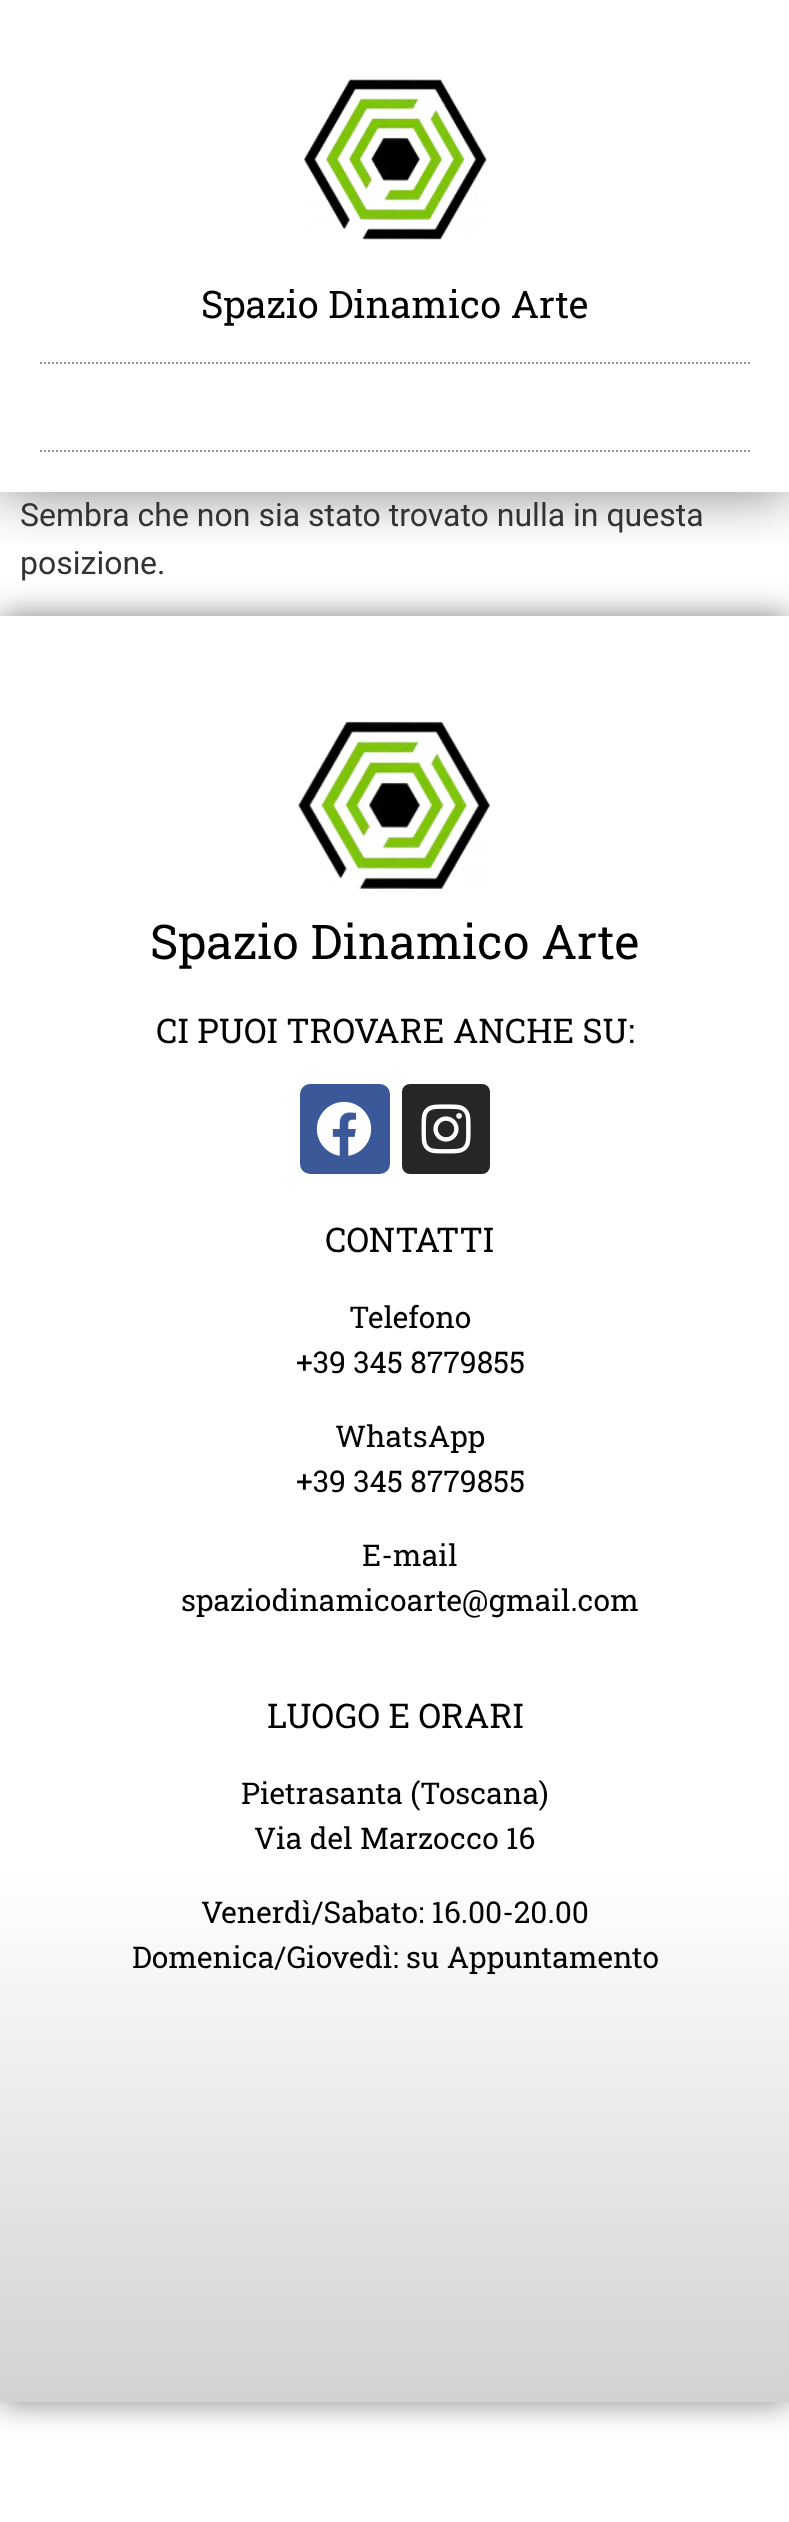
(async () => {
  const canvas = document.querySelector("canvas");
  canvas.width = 789;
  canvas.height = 2522;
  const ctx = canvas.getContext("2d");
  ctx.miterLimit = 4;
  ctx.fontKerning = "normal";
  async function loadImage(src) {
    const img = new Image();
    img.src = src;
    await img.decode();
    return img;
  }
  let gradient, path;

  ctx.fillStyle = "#ffffff";
  ctx.fillRect(0, 0, 789, 2522);
  ctx.save();
  ctx.beginPath();
  ctx.rect(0, 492, 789, 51);
  ctx.clip();
  ctx.fillStyle = "rgba(0, 0, 0, 0.5)";
  ctx.filter = "blur(29px)";
  ctx.beginPath();
  ctx.rect(0, 0, 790, 492);
  ctx.fill();
  ctx.filter = "none";
  ctx.restore();
  ctx.drawImage(await loadImage("img/1.png"), 304, 79, 183, 161);
  path = new Path2D("M40 363H750");
  ctx.strokeStyle = "#8e8e8e";
  ctx.lineWidth = 2;
  ctx.setLineDash([2, 2]);
  ctx.stroke(path);
  path = new Path2D("M40 451H750");
  ctx.stroke(path);
  ctx.fillStyle = "rgba(0, 0, 0, 0.5)";
  ctx.filter = "blur(16px)";
  ctx.beginPath();
  ctx.rect(0, 616, 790, 1786);
  ctx.fill();
  ctx.filter = "none";
  gradient = ctx.createLinearGradient(395, 2402, 395, 616);
  gradient.addColorStop(0, "#d2d2d2");
  gradient.addColorStop(0.3, "#ffffff");
  ctx.fillStyle = gradient;
  ctx.fillRect(0, 616, 789, 1786);
  ctx.drawImage(await loadImage("img/2.png"), 298, 721, 193, 168);
  ctx.fillStyle = "#3b5998";
  ctx.beginPath();
  ctx.roundRect(300, 1084, 90, 90, 10);
  ctx.fill();
  ctx.drawImage(await loadImage("img/3.png"), 316, 1101, 56, 55);
  ctx.fillStyle = "#262626";
  ctx.beginPath();
  ctx.roundRect(402, 1084, 88, 90, 8);
  ctx.fill();
  ctx.drawImage(await loadImage("img/4.png"), 421, 1104, 50, 50);
  ctx.font = "38px Roboto Slab";
  ctx.fillStyle = "#000000";
  ctx.fillText("Spazio Dinamico Arte", 201, 318);
  ctx.font = "32px Roboto";
  ctx.fillStyle = "#333333";
  ctx.fillText("Sembra che non sia stato trovato nulla in questa", 20, 526);
  ctx.fillText("posizione.", 20, 574);
  ctx.font = "48px Roboto Slab";
  ctx.fillStyle = "#000000";
  ctx.fillText("Spazio Dinamico Arte", 150, 959);
  ctx.font = "34px Roboto Slab";
  ctx.fillText("CI PUOI TROVARE ANCHE SU:", 156, 1043);
  ctx.fillText("CONTATTI", 325, 1252);
  ctx.font = "30px Roboto Slab";
  for (const [text, x, y] of [
    ["Telefono", 349, 1328],
    ["+39 345 8779855", 296, 1373],
    ["WhatsApp", 335, 1447],
    ["+39 345 8779855", 296, 1492],
    ["E-mail", 362, 1566],
    ["spaziodinamicoarte@gmail.com", 181, 1611],
  ]) {
    ctx.fillText(text, x, y);
  }
  ctx.font = "34px Roboto Slab";
  ctx.fillText("LUOGO E ORARI", 267, 1728);
  ctx.font = "30px Roboto Slab";
  for (const [text, x, y] of [
    ["Pietrasanta (Toscana)", 241, 1804],
    ["Via del Marzocco 16", 254, 1849],
    ["Venerdì/Sabato: 16.00-20.00", 201, 1923],
    ["Domenica/Giovedì: su Appuntamento", 132, 1968],
  ]) {
    ctx.fillText(text, x, y);
  }
})();
